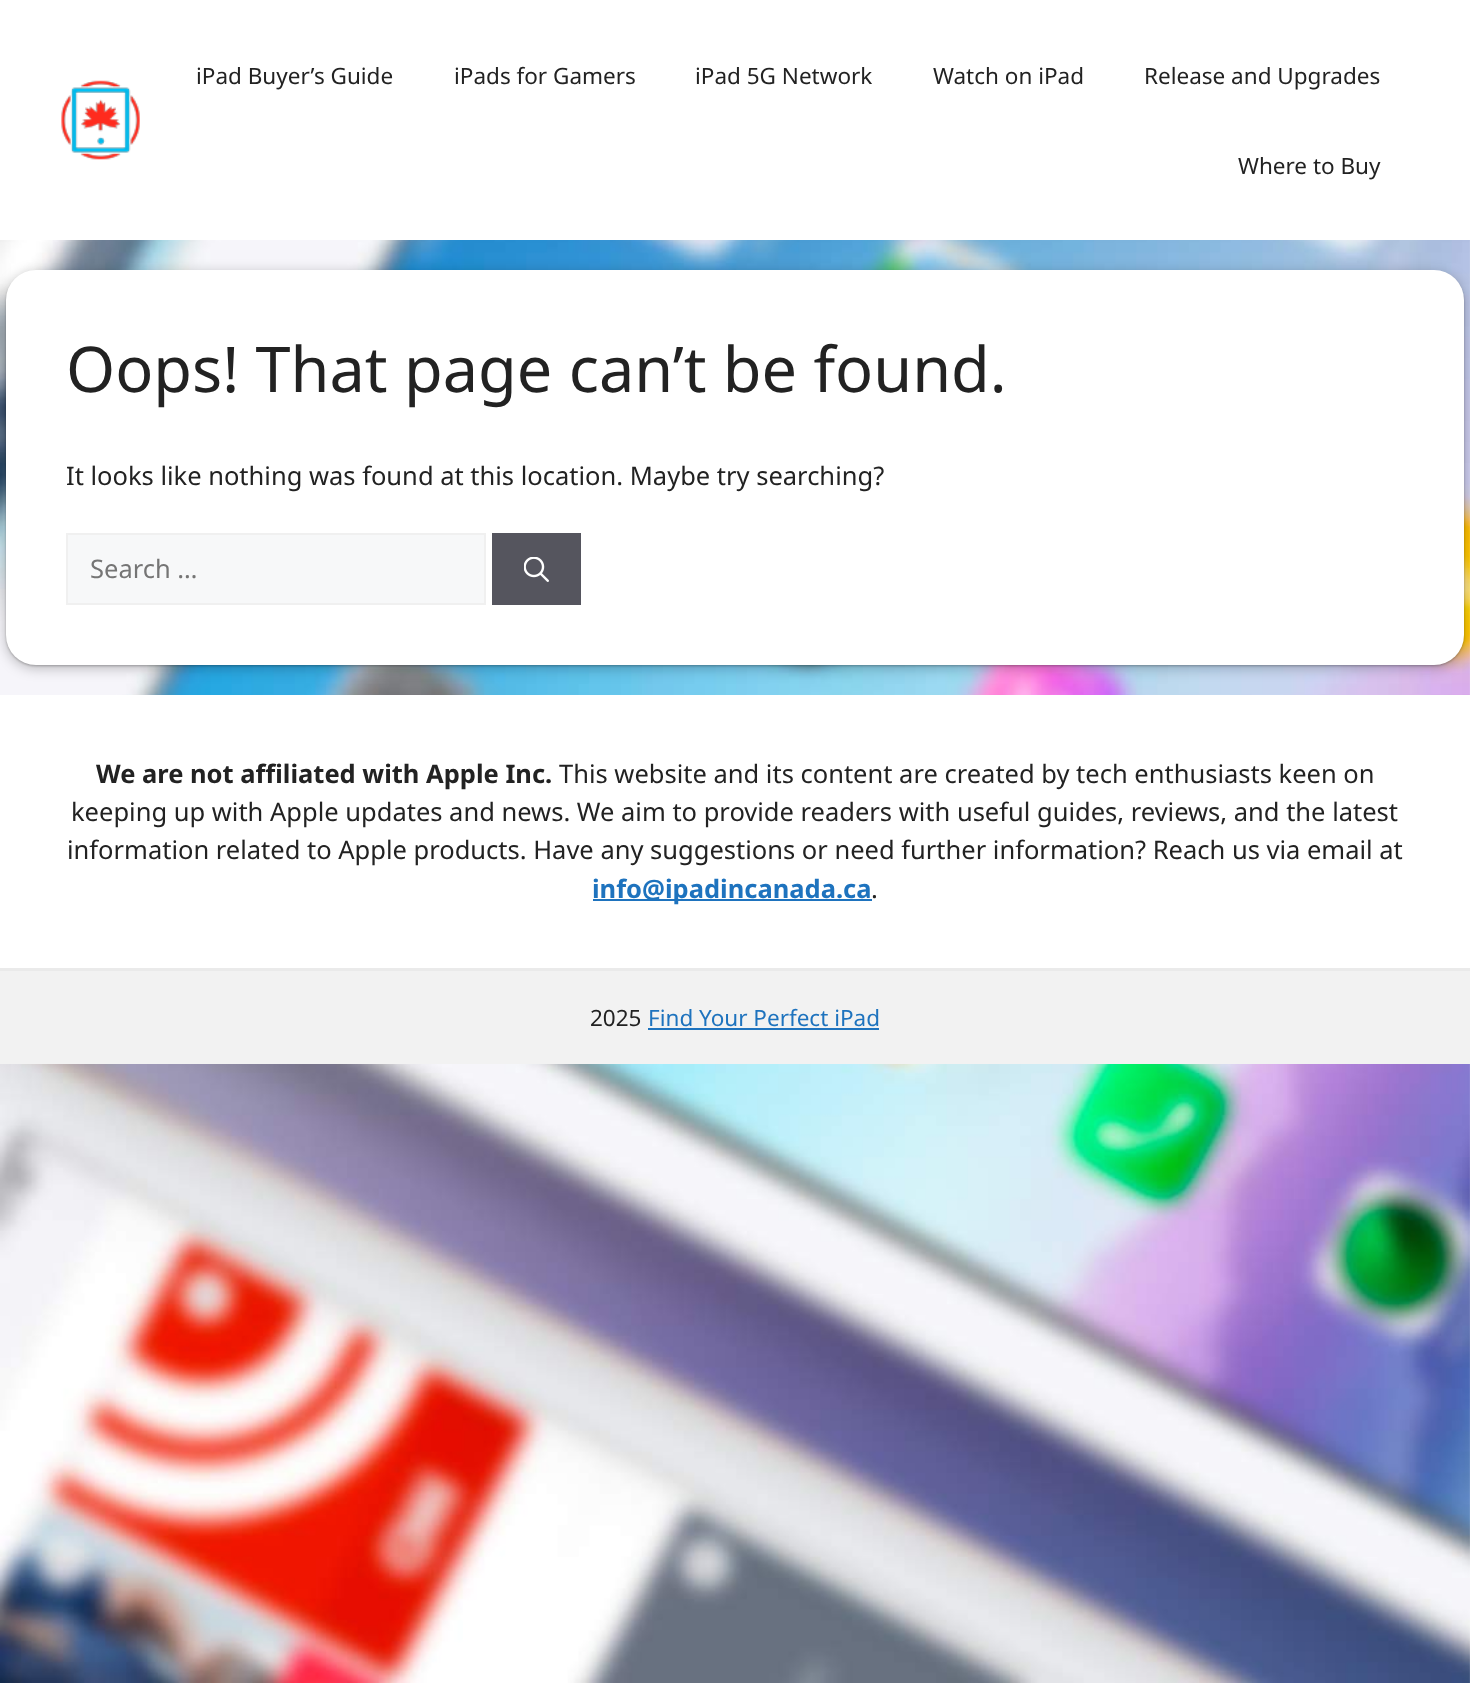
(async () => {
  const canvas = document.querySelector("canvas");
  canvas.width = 1470;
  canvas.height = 1683;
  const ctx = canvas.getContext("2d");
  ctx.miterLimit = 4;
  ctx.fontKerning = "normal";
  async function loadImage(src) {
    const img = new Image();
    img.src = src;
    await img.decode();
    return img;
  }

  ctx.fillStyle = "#ffffff";
  ctx.fillRect(0, 0, 1470, 1683);
  ctx.drawImage(await loadImage("img/1.png"), 0, 240, 1470, 1443);
  ctx.drawImage(await loadImage("img/2.png"), 61, 80, 79, 80);
  ctx.fillStyle = "rgba(0, 0, 0, 0.25)";
  ctx.filter = "blur(6.5px)";
  ctx.beginPath();
  ctx.roundRect(6, 273, 1458, 395, 30);
  ctx.fill();
  ctx.filter = "none";
  ctx.filter = "blur(1px)";
  ctx.beginPath();
  ctx.roundRect(6, 272, 1458, 394, 30);
  ctx.fill();
  ctx.filter = "none";
  ctx.fillStyle = "#ffffff";
  ctx.beginPath();
  ctx.roundRect(6, 270, 1458, 395, 30);
  ctx.fill();
  ctx.beginPath();
  ctx.roundRect(7, 271, 1456, 393, 29);
  ctx.strokeStyle = "rgba(255, 255, 255, 0.1)";
  ctx.lineWidth = 2;
  ctx.stroke();
  ctx.fillStyle = "#f7f8f9";
  ctx.beginPath();
  ctx.rect(67, 534, 418, 70);
  ctx.fill();
  ctx.strokeStyle = "#f0f0f0";
  ctx.stroke();
  ctx.fillStyle = "#55555e";
  ctx.fillRect(492, 533, 89, 72);
  ctx.drawImage(await loadImage("img/3.png"), 524, 557, 25, 25);
  for (const [x, y, w, h, color] of [
    [0, 695, 1470, 273, "#ffffff"],
    [593, 899, 279, 2, "#1e73be"],
    [0, 971, 1470, 93, "#f2f2f2"],
    [0, 968, 1470, 3, "#eaeaea"],
    [648, 1028, 231, 2, "#1e73be"],
  ]) {
    ctx.fillStyle = color;
    ctx.fillRect(x, y, w, h);
  }
  ctx.font = "22.5px Noto Sans";
  ctx.fillStyle = "#222222";
  for (const [text, x, y] of [
    ["iPad Buyer’s Guide", 196, 84],
    ["iPads for Gamers", 454, 84],
    ["iPad 5G Network", 695, 84],
    ["Watch on iPad", 933, 84],
    ["Release and Upgrades", 1144, 84],
    ["Where to Buy", 1238, 174],
  ]) {
    ctx.fillText(text, x, y);
  }
  ctx.font = "63px Noto Sans";
  ctx.fillText("Oops! That page can’t be found.", 66, 392);
  ctx.font = "25.5px Noto Sans";
  ctx.fillText("It looks like nothing was found at this location. Maybe try searching?", 66, 485);
  ctx.fillStyle = "#757575";
  ctx.fillText("Search …", 90, 578);
  ctx.font = "bold 25.5px Noto Sans";
  ctx.fillStyle = "#222222";
  ctx.fillText("We are not affiliated with Apple Inc.", 96, 783);
  ctx.font = "25.5px Noto Sans";
  for (const [text, x, y] of [
    ["This website and its content are created by tech enthusiasts keen on", 559, 783],
    ["keeping up with Apple updates and news. We aim to provide readers with useful guides, reviews, and the latest", 71, 821],
    ["information related to Apple products. Have any suggestions or need further information? Reach us via email at", 67, 859],
  ]) {
    ctx.fillText(text, x, y);
  }
  ctx.font = "bold 25.5px Noto Sans";
  ctx.fillStyle = "#1e73be";
  ctx.fillText("info@ipadincanada.ca", 592, 898);
  ctx.font = "25.5px Noto Sans";
  ctx.fillStyle = "#222222";
  ctx.fillText(".", 871, 898);
  ctx.font = "22.5px Noto Sans";
  ctx.fillText("2025", 590, 1026);
  ctx.fillStyle = "#1e73be";
  ctx.fillText("Find Your Perfect iPad", 648, 1026);
})();
